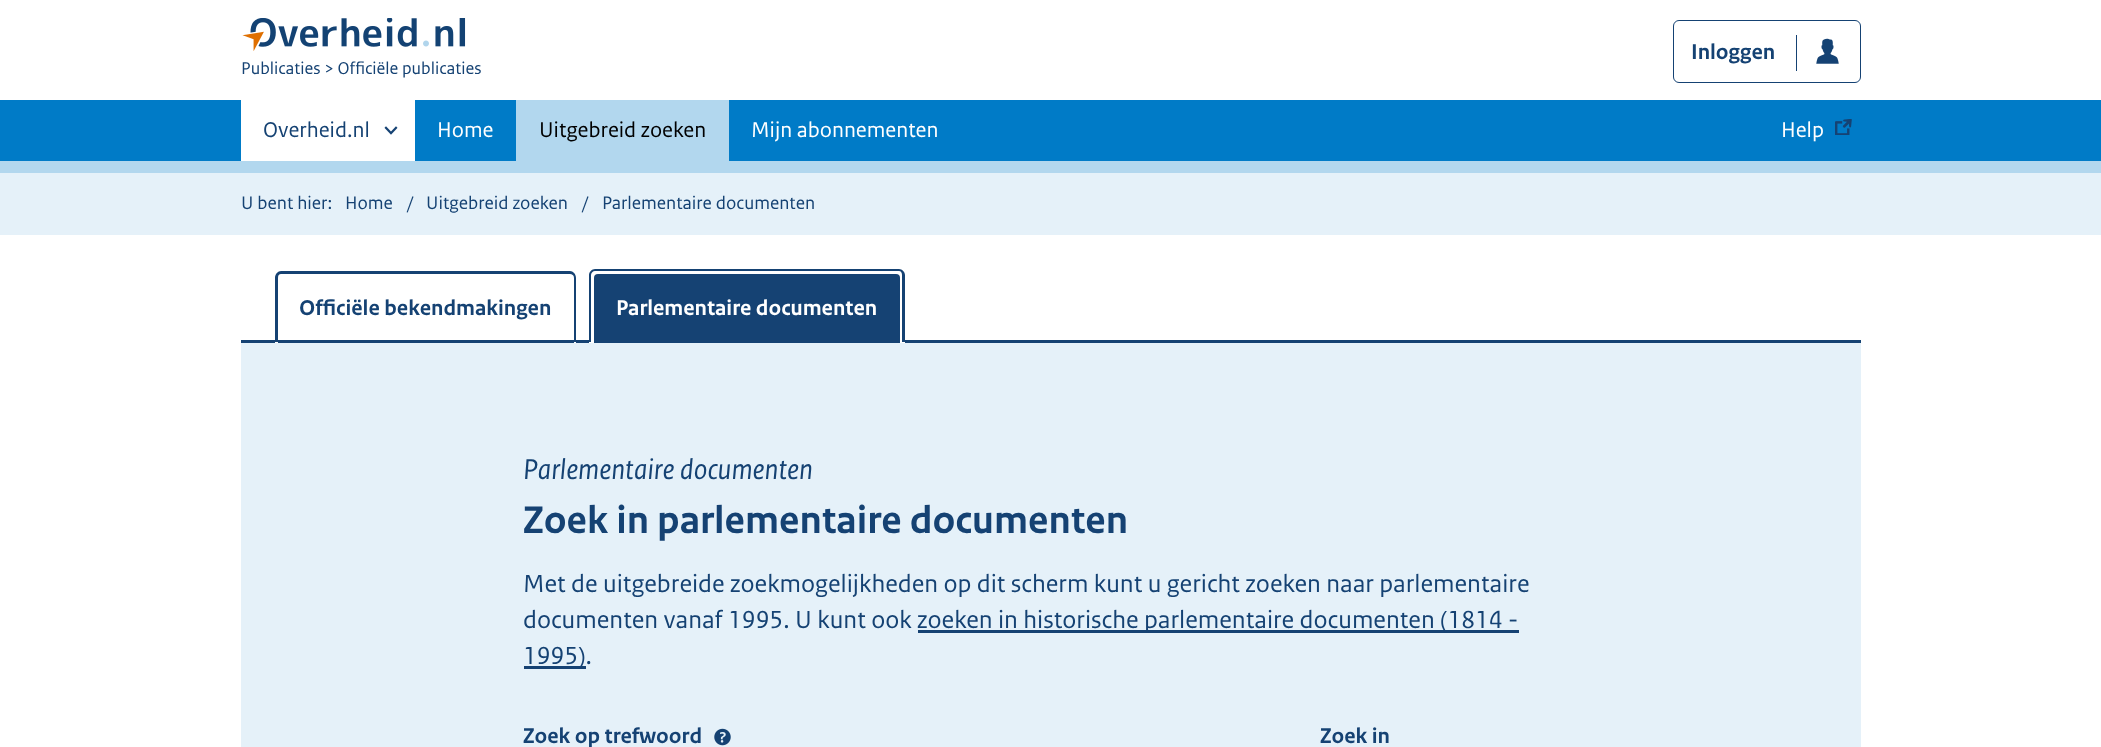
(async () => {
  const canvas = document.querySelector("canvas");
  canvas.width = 2101;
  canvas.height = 747;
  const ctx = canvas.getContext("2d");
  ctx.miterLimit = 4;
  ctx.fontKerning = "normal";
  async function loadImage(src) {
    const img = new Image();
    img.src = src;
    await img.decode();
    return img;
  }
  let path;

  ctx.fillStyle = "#ffffff";
  ctx.fillRect(0, 0, 2101, 747);
  ctx.fillStyle = "#b2d7ee";
  ctx.fillRect(0, 161, 2101, 12);
  ctx.drawImage(await loadImage("img/1.png"), 1816, 38, 23, 26);
  ctx.beginPath();
  ctx.roundRect(1673.5, 20.5, 187, 62, 5.5);
  ctx.strokeStyle = "#154273";
  ctx.stroke();
  ctx.fillStyle = "#154273";
  ctx.fillRect(1796, 35, 1, 36);
  ctx.drawImage(await loadImage("img/2.png"), 242, 18, 224, 33);
  ctx.fillStyle = "#007bc7";
  ctx.fillRect(0, 100, 2101, 61);
  ctx.fillStyle = "#ffffff";
  ctx.fillRect(241, 100, 174, 61);
  ctx.drawImage(await loadImage("img/3.png"), 384, 126, 14, 9);
  ctx.fillStyle = "#b2d7ee";
  ctx.fillRect(516, 100, 213, 61);
  ctx.drawImage(await loadImage("img/4.png"), 1835, 119, 17, 16);
  ctx.fillStyle = "#e5f1f9";
  ctx.fillRect(0, 173, 2101, 62);
  ctx.fillStyle = "#154273";
  ctx.fillRect(241, 340, 1620, 3);
  ctx.fillStyle = "#ffffff";
  ctx.beginPath();
  ctx.roundRect(275, 271, 301, 72, [6, 6, 0, 0]);
  ctx.fill();
  ctx.fillStyle = "#154273";
  path = new Path2D("M281 271H570C573 271 576 274 576 278V342H275V278C275 274 278 271 281 271ZM281 274H570C572 274 574 275 574 278V342H278V278C278 275 279 274 281 274Z");
  ctx.fill(path, "evenodd");
  ctx.fillRect(278, 340, 296, 3);
  ctx.fillStyle = "#ffffff";
  ctx.beginPath();
  ctx.roundRect(589, 269, 316, 74, [6, 6, 0, 0]);
  ctx.fill();
  ctx.fillStyle = "#154273";
  path = new Path2D("M595 269H899C902 269 905 272 905 275V342H589V275C589 272 592 269 595 269ZM595 271H899C901 271 902 273 902 275V342H591V275C591 273 593 271 595 271Z");
  ctx.fill(path, "evenodd");
  ctx.beginPath();
  ctx.roundRect(594, 274, 306, 69, [4, 4, 0, 0]);
  ctx.fill();
  for (const [x, y, w, h, color] of [
    [241, 343, 1620, 404, "#e5f1f9"],
    [918, 630, 601, 3, "#154273"],
    [524, 666, 62, 3, "#154273"],
  ]) {
    ctx.fillStyle = color;
    ctx.fillRect(x, y, w, h);
  }
  ctx.drawImage(await loadImage("img/5.png"), 714, 728, 17, 18);
  ctx.font = "bold 22.5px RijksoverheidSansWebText";
  ctx.fillText("Inloggen", 1691, 59);
  ctx.font = "18px RijksoverheidSansWebText";
  ctx.fillText("Publicaties > Officiële publicaties", 241, 74);
  ctx.font = "22.5px RijksoverheidSansWebText";
  ctx.fillText("Overheid.nl", 263, 137);
  ctx.fillStyle = "#ffffff";
  ctx.fillText("Home", 437, 137);
  ctx.fillStyle = "#000000";
  ctx.fillText("Uitgebreid zoeken", 539, 137);
  ctx.fillStyle = "#ffffff";
  ctx.fillText("Mijn abonnementen", 751, 137);
  ctx.fillText("Help", 1781, 137);
  ctx.font = "19.1px RijksoverheidSansWebText";
  ctx.fillStyle = "#154273";
  for (const [text, x, y] of [
    ["U bent hier:", 241, 209],
    ["Home", 345, 209],
    ["/", 407, 209],
    ["Uitgebreid zoeken", 426, 209],
    ["/", 582, 209],
    ["Parlementaire documenten", 602, 209],
  ]) {
    ctx.fillText(text, x, y);
  }
  ctx.font = "bold 22.5px RijksoverheidSansWebText";
  ctx.fillText("Officiële bekendmakingen", 299, 315);
  ctx.fillStyle = "#ffffff";
  ctx.fillText("Parlementaire documenten", 616, 315);
  ctx.font = "italic 30px RijksoverheidSansWebText";
  ctx.fillStyle = "#154273";
  ctx.fillText("Parlementaire documenten", 523, 479);
  ctx.font = "bold 40.5px RijksoverheidSansWebText";
  ctx.fillText("Zoek in parlementaire documenten", 523, 533);
  ctx.font = "26px RijksoverheidSansWebText";
  for (const [text, x, y] of [
    ["Met de uitgebreide zoekmogelijkheden op dit scherm kunt u gericht zoeken naar parlementaire", 523, 592],
    ["documenten vanaf 1995. U kunt ook", 523, 628],
    ["zoeken in historische parlementaire documenten (1814 -", 917, 628],
    ["1995).", 523, 664],
  ]) {
    ctx.fillText(text, x, y);
  }
  ctx.font = "bold 22.5px RijksoverheidSansWebText";
  ctx.fillText("Zoek op trefwoord", 523, 743);
  ctx.fillText("Zoek in", 1320, 743);
})();
